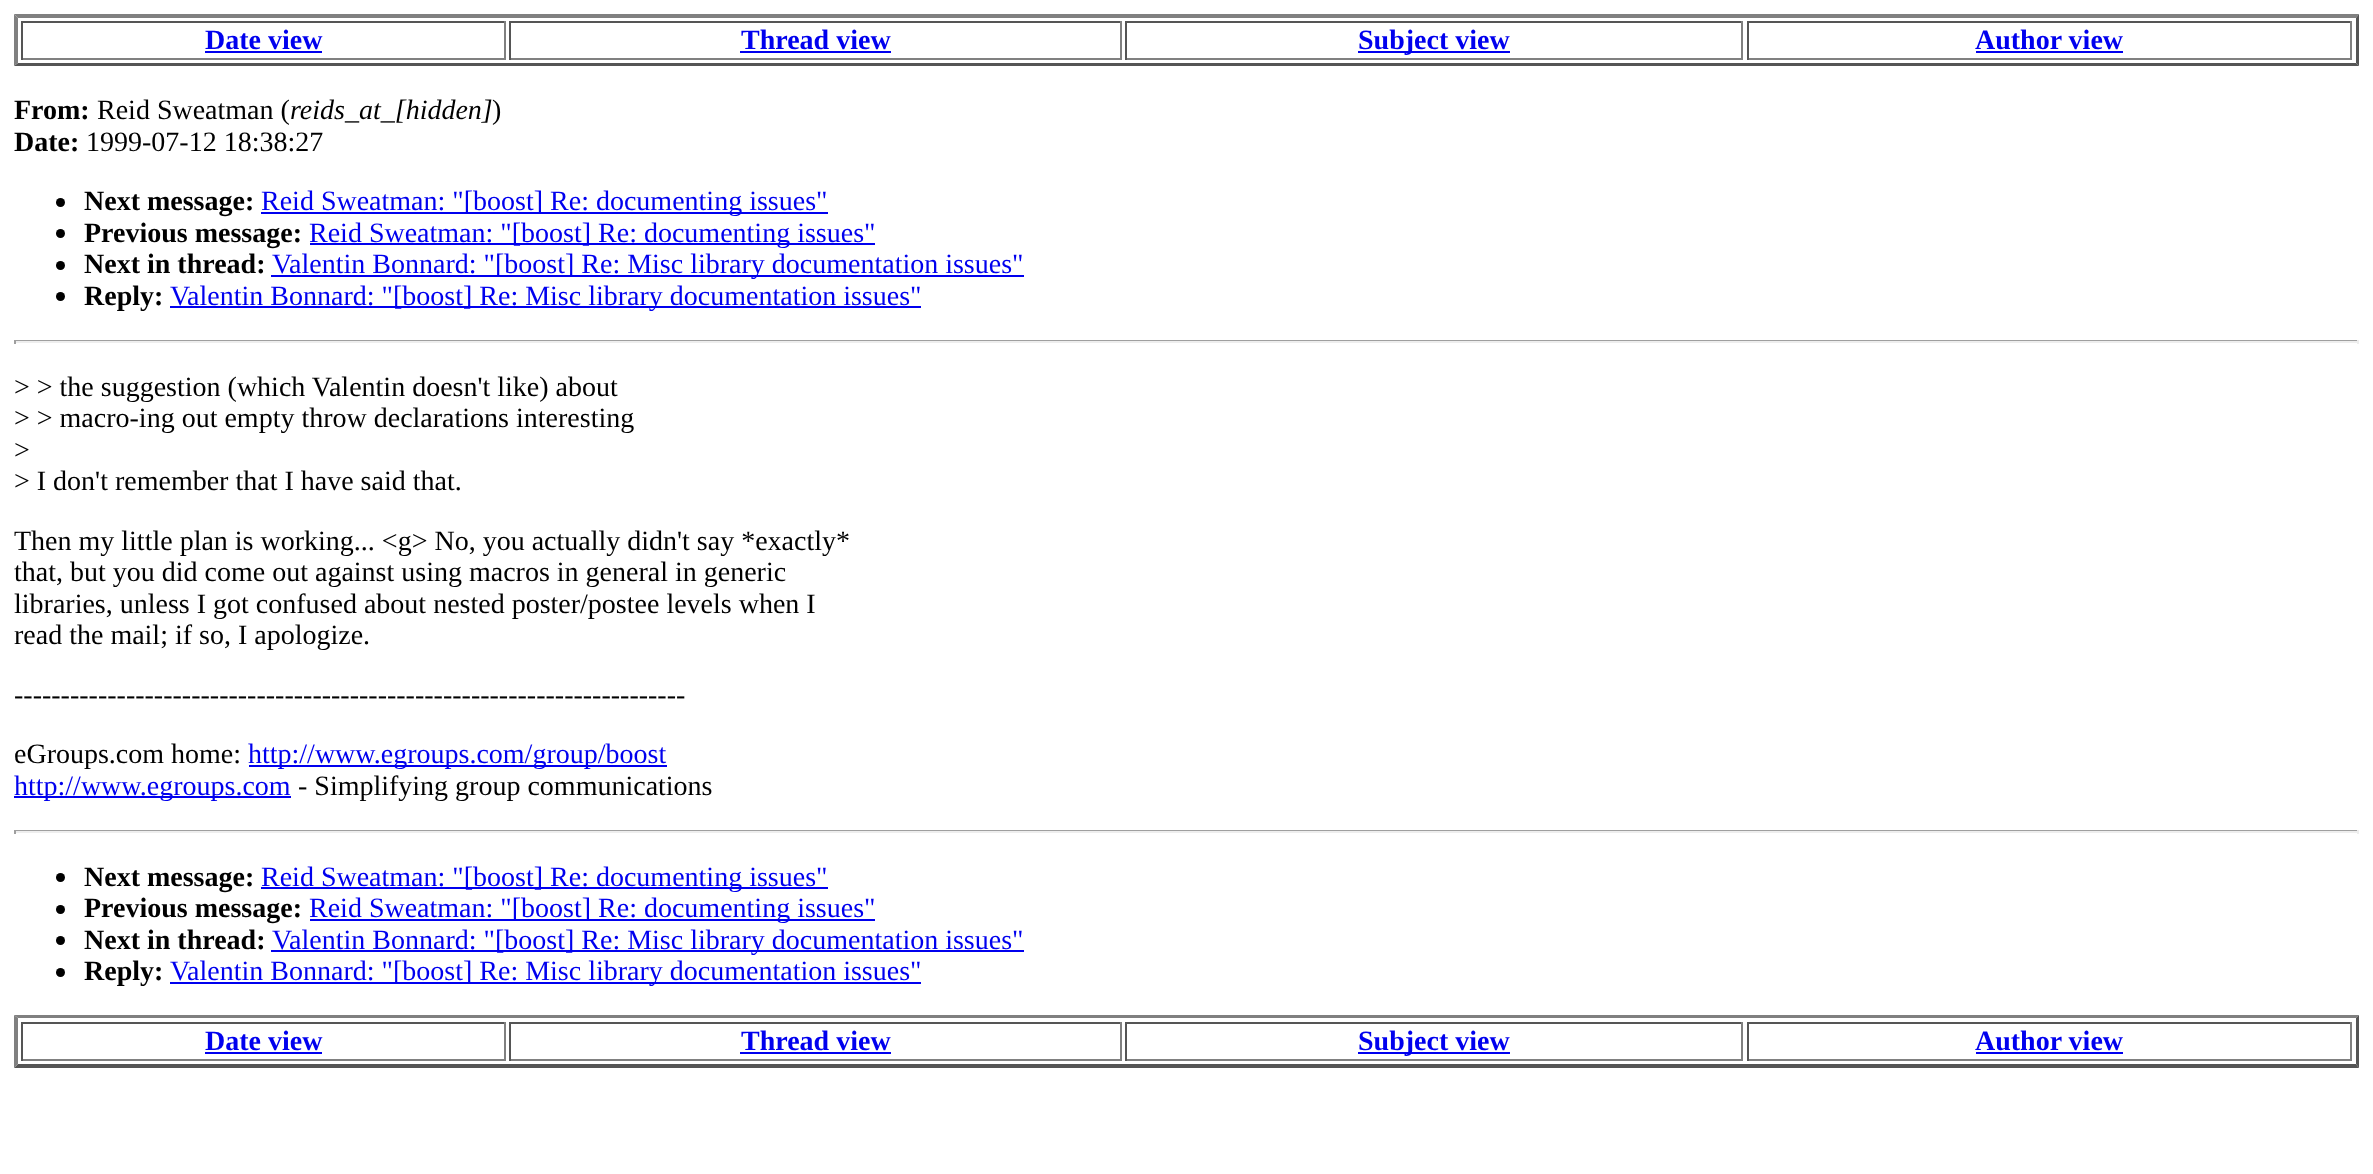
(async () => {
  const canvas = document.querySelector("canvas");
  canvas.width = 2373;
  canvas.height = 1174;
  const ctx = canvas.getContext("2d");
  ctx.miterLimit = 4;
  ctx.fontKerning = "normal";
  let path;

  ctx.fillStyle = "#ffffff";
  ctx.fillRect(0, 0, 2373, 1174);
  ctx.fillStyle = "#808080";
  path = new Path2D("M14 14H2359L2356 18H18Z");
  ctx.fill(path);
  ctx.fillStyle = "#555555";
  path = new Path2D("M2359 14V66L2356 63V18Z");
  ctx.fill(path);
  path = new Path2D("M2359 66H14L18 63H2356Z");
  ctx.fill(path);
  ctx.fillStyle = "#808080";
  path = new Path2D("M14 66V14L18 18V63Z");
  ctx.fill(path);
  for (const [x, y, w, h, color] of [
    [21, 21, 485, 2, "#555555"],
    [504, 21, 2, 39, "#808080"],
    [21, 58, 485, 2, "#808080"],
    [21, 21, 2, 39, "#555555"],
    [205, 51, 117, 2, "#0000ee"],
    [509, 21, 613, 2, "#555555"],
    [1120, 21, 2, 39, "#808080"],
    [509, 58, 613, 2, "#808080"],
    [509, 21, 2, 39, "#555555"],
    [740, 51, 151, 2, "#0000ee"],
    [1125, 21, 618, 2, "#555555"],
    [1741, 21, 2, 39, "#808080"],
    [1125, 58, 618, 2, "#808080"],
    [1125, 21, 2, 39, "#555555"],
    [1358, 51, 152, 2, "#0000ee"],
    [1747, 21, 605, 2, "#555555"],
    [2350, 21, 2, 39, "#808080"],
    [1747, 58, 605, 2, "#808080"],
    [1747, 21, 2, 39, "#555555"],
    [1976, 51, 147, 2, "#0000ee"],
  ]) {
    ctx.fillStyle = color;
    ctx.fillRect(x, y, w, h);
  }
  ctx.fillStyle = "#000000";
  ctx.beginPath();
  ctx.arc(60.5, 202.5, 4.5, 0, Math.PI * 2);
  ctx.fill();
  ctx.fillStyle = "#0000ee";
  ctx.fillRect(261, 212, 567, 2);
  ctx.fillStyle = "#000000";
  ctx.beginPath();
  ctx.arc(60.5, 233.5, 4.5, 0, Math.PI * 2);
  ctx.fill();
  ctx.fillStyle = "#0000ee";
  ctx.fillRect(310, 243, 565, 2);
  ctx.fillStyle = "#000000";
  ctx.beginPath();
  ctx.arc(60.5, 265.5, 4.5, 0, Math.PI * 2);
  ctx.fill();
  ctx.fillStyle = "#0000ee";
  ctx.fillRect(271, 275, 753, 2);
  ctx.fillStyle = "#000000";
  ctx.beginPath();
  ctx.arc(60.5, 296.5, 4.5, 0, Math.PI * 2);
  ctx.fill();
  for (const [x, y, w, h, color] of [
    [170, 306, 751, 2, "#0000ee"],
    [14, 340, 2345, 1, "#9f9f9f"],
    [2357, 340, 2, 4, "#eeeeee"],
    [14, 341, 2345, 2, "#eeeeee"],
    [14, 340, 2, 4, "#9f9f9f"],
    [249, 765, 418, 2, "#0000ee"],
    [14, 796, 277, 2, "#0000ee"],
    [14, 830, 2345, 1, "#9f9f9f"],
    [2357, 830, 2, 4, "#eeeeee"],
    [14, 831, 2345, 2, "#eeeeee"],
    [14, 830, 2, 4, "#9f9f9f"],
  ]) {
    ctx.fillStyle = color;
    ctx.fillRect(x, y, w, h);
  }
  ctx.fillStyle = "#000000";
  ctx.beginPath();
  ctx.arc(60.5, 877.5, 4.5, 0, Math.PI * 2);
  ctx.fill();
  ctx.fillStyle = "#0000ee";
  ctx.fillRect(261, 887, 567, 2);
  ctx.fillStyle = "#000000";
  ctx.beginPath();
  ctx.arc(60.5, 909.5, 4.5, 0, Math.PI * 2);
  ctx.fill();
  ctx.fillStyle = "#0000ee";
  ctx.fillRect(310, 919, 565, 2);
  ctx.fillStyle = "#000000";
  ctx.beginPath();
  ctx.arc(60.5, 940.5, 4.5, 0, Math.PI * 2);
  ctx.fill();
  ctx.fillStyle = "#0000ee";
  ctx.fillRect(271, 950, 753, 2);
  ctx.fillStyle = "#000000";
  ctx.beginPath();
  ctx.arc(60.5, 972.5, 4.5, 0, Math.PI * 2);
  ctx.fill();
  ctx.fillStyle = "#0000ee";
  ctx.fillRect(170, 982, 751, 2);
  ctx.fillStyle = "#808080";
  path = new Path2D("M14 1015H2359L2356 1018H18Z");
  ctx.fill(path);
  ctx.fillStyle = "#555555";
  path = new Path2D("M2359 1015V1068L2356 1064V1018Z");
  ctx.fill(path);
  path = new Path2D("M2359 1068H14L18 1064H2356Z");
  ctx.fill(path);
  ctx.fillStyle = "#808080";
  path = new Path2D("M14 1068V1015L18 1018V1064Z");
  ctx.fill(path);
  for (const [x, y, w, h, color] of [
    [21, 1022, 485, 2, "#555555"],
    [504, 1022, 2, 39, "#808080"],
    [21, 1059, 485, 2, "#808080"],
    [21, 1022, 2, 39, "#555555"],
    [205, 1052, 117, 2, "#0000ee"],
    [509, 1022, 613, 2, "#555555"],
    [1120, 1022, 2, 39, "#808080"],
    [509, 1059, 613, 2, "#808080"],
    [509, 1022, 2, 39, "#555555"],
    [740, 1052, 151, 2, "#0000ee"],
    [1125, 1022, 618, 2, "#555555"],
    [1741, 1022, 2, 39, "#808080"],
    [1125, 1059, 618, 2, "#808080"],
    [1125, 1022, 2, 39, "#555555"],
    [1358, 1052, 152, 2, "#0000ee"],
    [1747, 1022, 605, 2, "#555555"],
    [2350, 1022, 2, 39, "#808080"],
    [1747, 1059, 605, 2, "#808080"],
    [1747, 1022, 2, 39, "#555555"],
    [1976, 1052, 147, 2, "#0000ee"],
  ]) {
    ctx.fillStyle = color;
    ctx.fillRect(x, y, w, h);
  }
  ctx.font = "bold 28px Liberation Serif";
  for (const [text, x, y] of [
    ["Date view", 205, 49],
    ["Thread view", 741, 49],
    ["Subject view", 1358, 49],
    ["Author view", 1975, 49],
  ]) {
    ctx.fillText(text, x, y);
  }
  ctx.fillStyle = "#000000";
  ctx.fillText("From:", 14, 119);
  ctx.font = "28px Liberation Serif";
  ctx.fillText("Reid Sweatman (", 97, 119);
  ctx.font = "italic 28px Liberation Serif";
  ctx.fillText("reids_at_[hidden]", 290, 119);
  ctx.font = "28px Liberation Serif";
  ctx.fillText(")", 492, 119);
  ctx.font = "bold 28px Liberation Serif";
  ctx.fillText("Date:", 14, 151);
  ctx.font = "28px Liberation Serif";
  ctx.fillText("1999-07-12 18:38:27", 86, 151);
  ctx.font = "bold 28px Liberation Serif";
  ctx.fillText("Next message:", 84, 210);
  ctx.font = "28px Liberation Serif";
  ctx.fillStyle = "#0000ee";
  ctx.fillText("Reid Sweatman: \"[boost] Re: documenting issues\"", 261, 210);
  ctx.font = "bold 28px Liberation Serif";
  ctx.fillStyle = "#000000";
  ctx.fillText("Previous message:", 84, 242);
  ctx.font = "28px Liberation Serif";
  ctx.fillStyle = "#0000ee";
  ctx.fillText("Reid Sweatman: \"[boost] Re: documenting issues\"", 309, 242);
  ctx.font = "bold 28px Liberation Serif";
  ctx.fillStyle = "#000000";
  ctx.fillText("Next in thread:", 84, 273);
  ctx.font = "28px Liberation Serif";
  ctx.fillStyle = "#0000ee";
  ctx.fillText("Valentin Bonnard: \"[boost] Re: Misc library documentation issues\"", 272, 273);
  ctx.font = "bold 28px Liberation Serif";
  ctx.fillStyle = "#000000";
  ctx.fillText("Reply:", 84, 305);
  ctx.font = "28px Liberation Serif";
  ctx.fillStyle = "#0000ee";
  ctx.fillText("Valentin Bonnard: \"[boost] Re: Misc library documentation issues\"", 170, 305);
  ctx.fillStyle = "#000000";
  for (const [text, x, y] of [
    ["> > the suggestion (which Valentin doesn't like) about", 14, 396],
    ["> > macro-ing out empty throw declarations interesting", 14, 427],
    [">", 14, 459],
    ["> I don't remember that I have said that.", 14, 490],
    ["Then my little plan is working... <g> No, you actually didn't say *exactly*", 14, 550],
    ["that, but you did come out against using macros in general in generic", 14, 581],
    ["libraries, unless I got confused about nested poster/postee levels when I", 14, 613],
    ["read the mail; if so, I apologize.", 14, 644],
    ["------------------------------------------------------------------------", 14, 704],
    ["eGroups.com home:", 14, 763],
  ]) {
    ctx.fillText(text, x, y);
  }
  ctx.fillStyle = "#0000ee";
  ctx.fillText("http://www.egroups.com/group/boost", 248, 763);
  ctx.fillText("http://www.egroups.com", 14, 795);
  ctx.fillStyle = "#000000";
  ctx.fillText("- Simplifying group communications", 298, 795);
  ctx.font = "bold 28px Liberation Serif";
  ctx.fillText("Next message:", 84, 886);
  ctx.font = "28px Liberation Serif";
  ctx.fillStyle = "#0000ee";
  ctx.fillText("Reid Sweatman: \"[boost] Re: documenting issues\"", 261, 886);
  ctx.font = "bold 28px Liberation Serif";
  ctx.fillStyle = "#000000";
  ctx.fillText("Previous message:", 84, 917);
  ctx.font = "28px Liberation Serif";
  ctx.fillStyle = "#0000ee";
  ctx.fillText("Reid Sweatman: \"[boost] Re: documenting issues\"", 309, 917);
  ctx.font = "bold 28px Liberation Serif";
  ctx.fillStyle = "#000000";
  ctx.fillText("Next in thread:", 84, 949);
  ctx.font = "28px Liberation Serif";
  ctx.fillStyle = "#0000ee";
  ctx.fillText("Valentin Bonnard: \"[boost] Re: Misc library documentation issues\"", 272, 949);
  ctx.font = "bold 28px Liberation Serif";
  ctx.fillStyle = "#000000";
  ctx.fillText("Reply:", 84, 980);
  ctx.font = "28px Liberation Serif";
  ctx.fillStyle = "#0000ee";
  ctx.fillText("Valentin Bonnard: \"[boost] Re: Misc library documentation issues\"", 170, 980);
  ctx.font = "bold 28px Liberation Serif";
  for (const [text, x, y] of [
    ["Date view", 205, 1050],
    ["Thread view", 741, 1050],
    ["Subject view", 1358, 1050],
    ["Author view", 1975, 1050],
  ]) {
    ctx.fillText(text, x, y);
  }
})();
